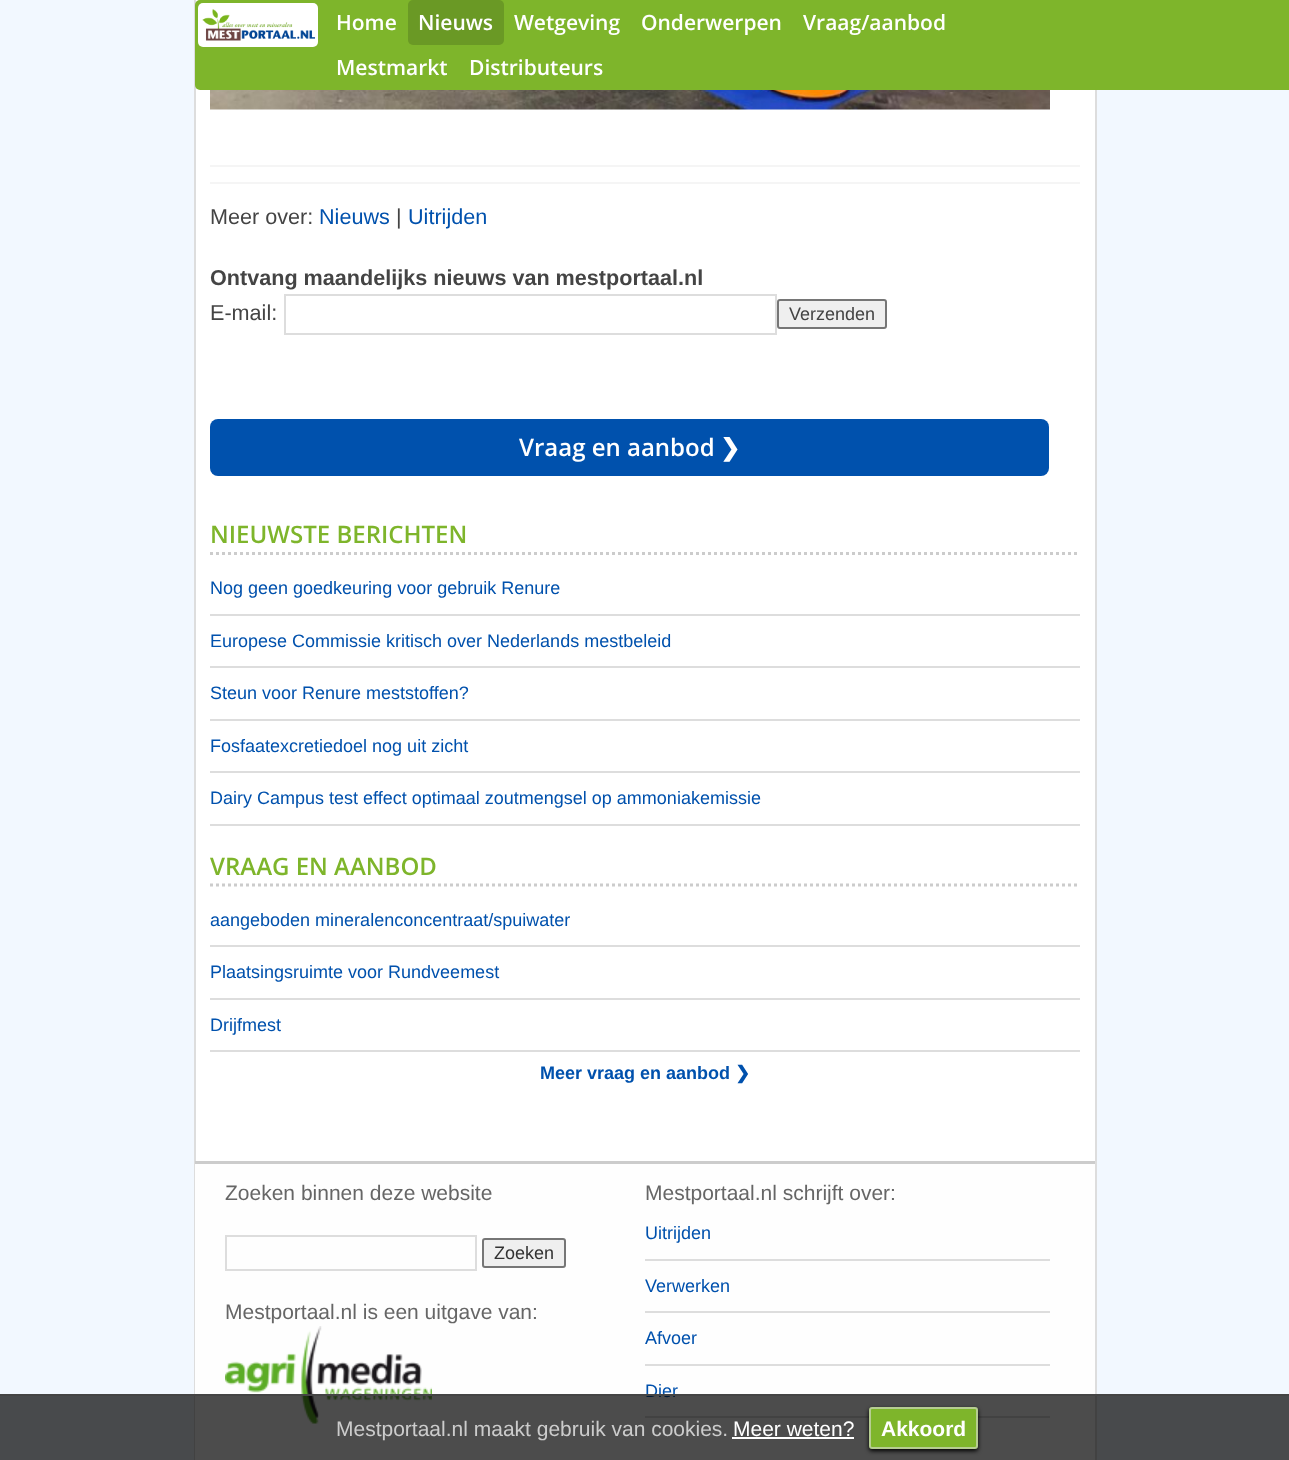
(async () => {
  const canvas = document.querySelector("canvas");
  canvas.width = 1289;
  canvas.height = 1460;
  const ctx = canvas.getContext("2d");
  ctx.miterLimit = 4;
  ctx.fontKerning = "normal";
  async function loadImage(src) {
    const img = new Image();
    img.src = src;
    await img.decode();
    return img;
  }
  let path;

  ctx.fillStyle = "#f2f8ff";
  ctx.fillRect(0, 0, 1289, 1460);
  ctx.fillStyle = "#ffffff";
  ctx.fillRect(196, 0, 899, 1161);
  ctx.strokeStyle = "#dddddd";
  ctx.lineWidth = 2;
  ctx.strokeRect(195, -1, 901, 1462);
  ctx.fillStyle = "#7eb52b";
  ctx.beginPath();
  ctx.roundRect(195, 0, 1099, 90, 5);
  ctx.fill();
  ctx.fillStyle = "#ffffff";
  ctx.beginPath();
  ctx.roundRect(198, 3, 120, 44, 5);
  ctx.fill();
  ctx.drawImage(await loadImage("img/1.png"), 202, 9, 113, 32);
  ctx.fillStyle = "#6a9925";
  ctx.beginPath();
  ctx.roundRect(408, 0, 96, 45, 5);
  ctx.fill();
  ctx.drawImage(await loadImage("img/2.png"), 210, 90, 840, 20);
  ctx.fillStyle = "#f5f5f5";
  ctx.fillRect(210, 165, 870, 2);
  ctx.fillRect(210, 182, 870, 2);
  ctx.strokeRect(285, 295, 491, 39);
  ctx.fillStyle = "#efefef";
  ctx.beginPath();
  ctx.roundRect(778, 300, 108, 28, 2);
  ctx.fill();
  ctx.strokeStyle = "#767676";
  ctx.stroke();
  ctx.fillStyle = "#0051ad";
  ctx.beginPath();
  ctx.roundRect(210, 419, 839, 57, 8);
  ctx.fill();
  path = new Path2D("M210 553.5H1080");
  ctx.strokeStyle = "#cccccc";
  ctx.lineWidth = 3;
  ctx.setLineDash([3, 3]);
  ctx.stroke(path);
  for (const [x, y, w, h, color] of [
    [210, 614, 870, 2, "#dddddd"],
    [210, 666, 870, 2, "#dddddd"],
    [210, 719, 870, 2, "#dddddd"],
    [210, 771, 870, 2, "#dddddd"],
    [210, 824, 870, 2, "#dddddd"],
  ]) {
    ctx.fillStyle = color;
    ctx.fillRect(x, y, w, h);
  }
  path = new Path2D("M210 885H1080");
  ctx.stroke(path);
  for (const [x, y, w, h, color] of [
    [210, 945, 870, 2, "#dddddd"],
    [210, 998, 870, 2, "#dddddd"],
    [210, 1050, 870, 2, "#dddddd"],
    [195, 1164, 900, 296, "#fefefe"],
    [195, 1161, 900, 3, "#cccccc"],
  ]) {
    ctx.fillStyle = color;
    ctx.fillRect(x, y, w, h);
  }
  ctx.strokeStyle = "#dddddd";
  ctx.lineWidth = 2;
  ctx.setLineDash([]);
  ctx.strokeRect(226, 1236, 250, 34);
  ctx.fillStyle = "#efefef";
  ctx.beginPath();
  ctx.roundRect(483, 1239, 82, 28, 2);
  ctx.fill();
  ctx.strokeStyle = "#767676";
  ctx.stroke();
  ctx.drawImage(await loadImage("img/3.png"), 225, 1326, 207, 98);
  for (const [x, y, w, h, color] of [
    [645, 1259, 405, 2, "#dddddd"],
    [645, 1311, 405, 2, "#dddddd"],
    [645, 1364, 405, 2, "#dddddd"],
    [645, 1416, 405, 2, "#dddddd"],
  ]) {
    ctx.fillStyle = color;
    ctx.fillRect(x, y, w, h);
  }
  ctx.font = "600 21px Open Sans";
  ctx.fillStyle = "#ffffff";
  for (const [text, x, y] of [
    ["Home", 336, 30],
    ["Nieuws", 418, 30],
    ["Wetgeving", 514, 30],
    ["Onderwerpen", 641, 30],
    ["Vraag/aanbod", 803, 30],
    ["Mestmarkt", 336, 75],
    ["Distributeurs", 469, 75],
  ]) {
    ctx.fillText(text, x, y);
  }
  ctx.font = "21.6px Liberation Sans";
  ctx.fillStyle = "#444444";
  ctx.fillText("Meer over:", 210, 224);
  ctx.fillStyle = "#0051ad";
  ctx.fillText("Nieuws", 319, 224);
  ctx.fillStyle = "#444444";
  ctx.fillText("|", 396, 224);
  ctx.fillStyle = "#0051ad";
  ctx.fillText("Uitrijden", 408, 224);
  ctx.font = "bold 21.6px Liberation Sans";
  ctx.fillStyle = "#444444";
  ctx.fillText("Ontvang maandelijks nieuws van mestportaal.nl", 210, 285);
  ctx.font = "21.6px Liberation Sans";
  ctx.fillText("E-mail:", 210, 320);
  ctx.font = "18px Liberation Sans";
  ctx.fillText("Verzenden", 789, 320);
  ctx.font = "600 24px Open Sans";
  ctx.fillStyle = "#ffffff";
  ctx.fillText("Vraag en aanbod", 519, 456);
  ctx.font = "bold 24px DejaVu Sans";
  ctx.fillText("❯", 720, 456);
  ctx.font = "600 24px Open Sans";
  ctx.fillStyle = "#7eb52b";
  ctx.fillText("NIEUWSTE BERICHTEN", 210, 543);
  ctx.font = "18px Liberation Sans";
  ctx.fillStyle = "#0051ad";
  for (const [text, x, y] of [
    ["Nog geen goedkeuring voor gebruik Renure", 210, 594],
    ["Europese Commissie kritisch over Nederlands mestbeleid", 210, 647],
    ["Steun voor Renure meststoffen?", 210, 699],
    ["Fosfaatexcretiedoel nog uit zicht", 210, 752],
    ["Dairy Campus test effect optimaal zoutmengsel op ammoniakemissie", 210, 804],
  ]) {
    ctx.fillText(text, x, y);
  }
  ctx.font = "600 24px Open Sans";
  ctx.fillStyle = "#7eb52b";
  ctx.fillText("VRAAG EN AANBOD", 210, 875);
  ctx.font = "18px Liberation Sans";
  ctx.fillStyle = "#0051ad";
  for (const [text, x, y] of [
    ["aangeboden mineralenconcentraat/spuiwater", 210, 926],
    ["Plaatsingsruimte voor Rundveemest", 210, 978],
    ["Drijfmest", 210, 1031],
  ]) {
    ctx.fillText(text, x, y);
  }
  ctx.font = "bold 18px Liberation Sans";
  ctx.fillText("Meer vraag en aanbod", 540, 1079);
  ctx.font = "bold 18px DejaVu Sans";
  ctx.fillText("❯", 735, 1079);
  ctx.font = "21px Liberation Sans";
  ctx.fillStyle = "#666666";
  ctx.fillText("Zoeken binnen deze website", 225, 1200);
  ctx.font = "18px Liberation Sans";
  ctx.fillStyle = "#333333";
  ctx.fillText("Zoeken", 494, 1259);
  ctx.font = "21px Liberation Sans";
  ctx.fillStyle = "#666666";
  ctx.fillText("Mestportaal.nl is een uitgave van:", 225, 1319);
  ctx.fillText("Mestportaal.nl schrijft over:", 645, 1200);
  ctx.font = "18px Liberation Sans";
  ctx.fillStyle = "#0051ad";
  for (const [text, x, y] of [
    ["Uitrijden", 645, 1239],
    ["Verwerken", 645, 1292],
    ["Afvoer", 645, 1344],
    ["Dier", 645, 1397],
  ]) {
    ctx.fillText(text, x, y);
  }
  ctx.fillStyle = "rgba(0, 0, 0, 0.7)";
  ctx.fillRect(0, 1396, 1289, 64);
  ctx.fillStyle = "#444444";
  ctx.fillRect(0, 1394, 1289, 2);
  ctx.font = "21px Liberation Sans";
  ctx.fillStyle = "#cccccc";
  ctx.fillText("Mestportaal.nl maakt gebruik van cookies.", 336, 1436);
  ctx.fillStyle = "#ffffff";
  ctx.fillText("Meer weten?", 733, 1436);
  ctx.fillRect(732, 1437, 122, 2);
  ctx.fillStyle = "#000000";
  ctx.filter = "blur(2px)";
  ctx.beginPath();
  ctx.roundRect(869, 1409, 109, 42, 3);
  ctx.fill();
  ctx.filter = "none";
  ctx.fillStyle = "#7eb52b";
  ctx.beginPath();
  ctx.roundRect(870, 1408, 107, 40, 2);
  ctx.fill();
  ctx.strokeStyle = "#b6cd91";
  ctx.stroke();
  ctx.font = "bold 21px Liberation Sans";
  ctx.fillStyle = "#ffffff";
  ctx.fillText("Akkoord", 881, 1436);
})();
